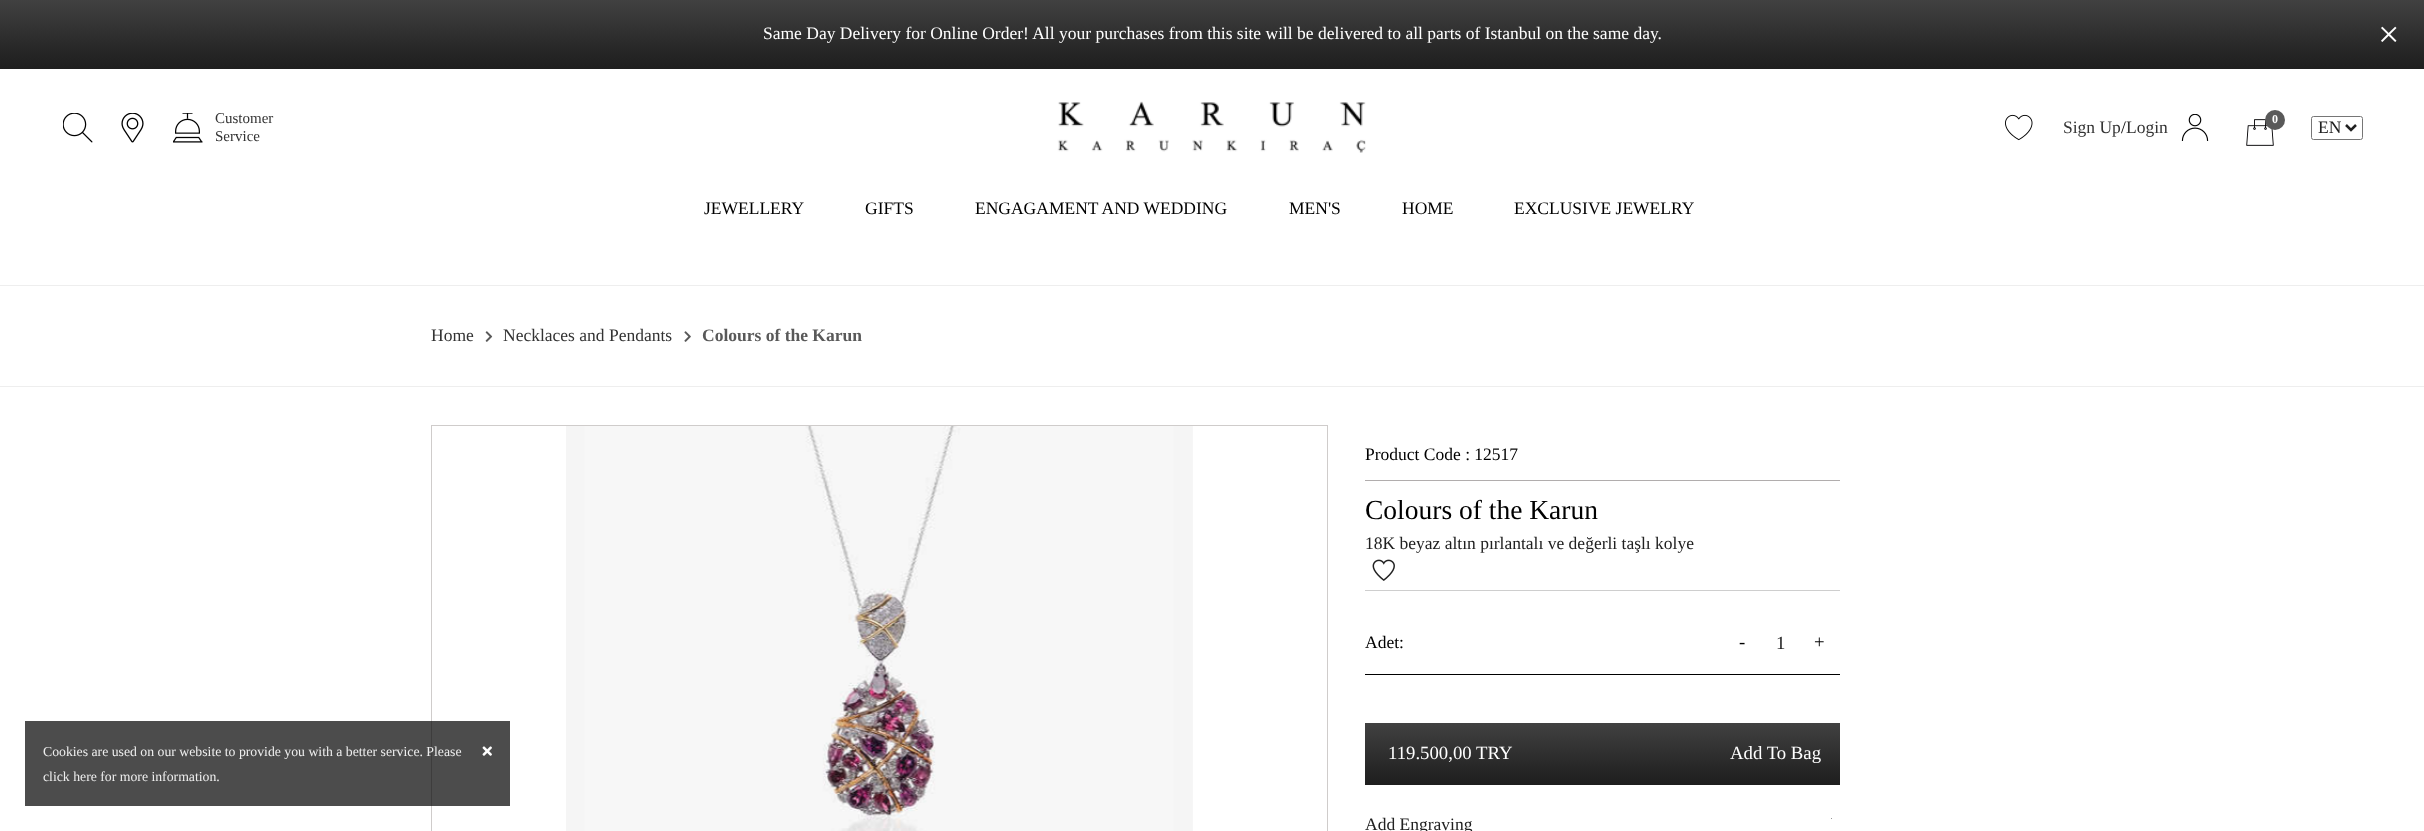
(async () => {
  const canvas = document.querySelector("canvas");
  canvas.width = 2424;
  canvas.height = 831;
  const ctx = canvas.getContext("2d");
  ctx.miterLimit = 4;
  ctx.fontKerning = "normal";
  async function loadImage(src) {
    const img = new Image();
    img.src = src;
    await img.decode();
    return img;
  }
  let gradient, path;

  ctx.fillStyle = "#ffffff";
  ctx.fillRect(0, 0, 2424, 831);
  gradient = ctx.createLinearGradient(1213, 0, 1213, 69);
  gradient.addColorStop(0, "#414141");
  gradient.addColorStop(0.25, "#383838");
  gradient.addColorStop(0.5, "#2f2f2f");
  gradient.addColorStop(0.75, "#262626");
  gradient.addColorStop(1, "#1e1e1e");
  ctx.fillStyle = gradient;
  ctx.fillRect(0, 0, 2424, 69);
  ctx.drawImage(await loadImage("img/1.png"), 63, 113, 30, 30);
  ctx.drawImage(await loadImage("img/2.png"), 121, 113, 23, 30);
  ctx.drawImage(await loadImage("img/3.png"), 173, 113, 30, 30);
  ctx.drawImage(await loadImage("img/4.png"), 1057, 101, 309, 52);
  ctx.drawImage(await loadImage("img/5.png"), 2005, 114, 28, 27);
  ctx.drawImage(await loadImage("img/6.png"), 2246, 119, 28, 27);
  ctx.fillStyle = "#595959";
  ctx.beginPath();
  ctx.arc(2275, 120, 10, 0, Math.PI * 2);
  ctx.fill();
  ctx.drawImage(await loadImage("img/7.png"), 2181, 114, 28, 27);
  ctx.beginPath();
  ctx.roundRect(2311.5, 116.5, 51, 23, 2);
  ctx.strokeStyle = "#767676";
  ctx.stroke();
  path = new Path2D("M2346 125L2351 130L2356 125");
  ctx.strokeStyle = "#212121";
  ctx.lineWidth = 2.5;
  ctx.stroke(path);
  ctx.fillStyle = "#eeeeee";
  ctx.fillRect(0, 285, 2424, 1);
  ctx.fillRect(0, 386, 2424, 1);
  ctx.drawImage(await loadImage("img/8.png"), 485, 331, 8, 11);
  ctx.drawImage(await loadImage("img/9.png"), 684, 331, 7, 11);
  ctx.strokeStyle = "#cfcccb";
  ctx.lineWidth = 1;
  ctx.strokeRect(431.5, 425.5, 896, 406);
  ctx.drawImage(await loadImage("img/10.png"), 566, 426, 627, 405);
  ctx.fillStyle = "#b1adad";
  ctx.fillRect(1365, 480, 475, 1);
  ctx.drawImage(await loadImage("img/11.png"), 1372, 559, 23, 22);
  ctx.fillStyle = "#cecece";
  ctx.fillRect(1365, 590, 475, 1);
  ctx.fillStyle = "#000000";
  ctx.fillRect(1365, 674, 475, 1);
  gradient = ctx.createLinearGradient(1603, 723, 1603, 785);
  gradient.addColorStop(0, "#414141");
  gradient.addColorStop(0.25, "#383838");
  gradient.addColorStop(0.5, "#2f2f2f");
  gradient.addColorStop(0.75, "#262626");
  gradient.addColorStop(1, "#1e1e1e");
  ctx.fillStyle = gradient;
  ctx.fillRect(1365, 723, 475, 62);
  ctx.fillStyle = "#767676";
  ctx.beginPath();
  ctx.arc(1831.5, 818.5, 0.5, 0, Math.PI * 2);
  ctx.fill();
  ctx.fillStyle = "rgba(0, 0, 0, 0.7)";
  ctx.fillRect(25, 721, 485, 85);
  ctx.drawImage(await loadImage("img/12.png"), 482, 746, 10, 10);
  ctx.font = "17.5px Liberation Serif";
  ctx.fillStyle = "#ffffff";
  ctx.fillText("Same Day Delivery for Online Order! All your purchases from this site will be delivered to all parts of Istanbul on the same day.", 763, 39);
  ctx.font = "38px Liberation Serif";
  ctx.fillText("×", 2378, 47);
  ctx.font = "15px Liberation Serif";
  ctx.fillStyle = "#333333";
  ctx.fillText("Customer", 215, 123);
  ctx.fillText("Service", 215, 141);
  ctx.font = "bold 12px Liberation Serif";
  ctx.fillStyle = "#ffffff";
  ctx.fillText("0", 2272, 123);
  ctx.font = "17.5px Liberation Serif";
  ctx.fillStyle = "#333333";
  ctx.fillText("Sign Up", 2063, 133);
  ctx.fillStyle = "#000000";
  ctx.fillText("/", 2121, 133);
  ctx.fillStyle = "#333333";
  ctx.fillText("Login", 2126, 133);
  ctx.fillStyle = "#212121";
  ctx.fillText("EN", 2318, 133);
  ctx.fillStyle = "#000000";
  for (const [text, x, y] of [
    ["JEWELLERY", 704, 214],
    ["GIFTS", 865, 214],
    ["ENGAGAMENT AND WEDDING", 975, 214],
    ["MEN'S", 1289, 214],
    ["HOME", 1402, 214],
    ["EXCLUSIVE JEWELRY", 1514, 214],
  ]) {
    ctx.fillText(text, x, y);
  }
  ctx.fillStyle = "#333333";
  ctx.fillText("Home", 431, 341);
  ctx.fillText("Necklaces and Pendants", 503, 341);
  ctx.font = "bold 17.5px Liberation Serif";
  ctx.fillStyle = "#595959";
  ctx.fillText("Colours of the Karun", 702, 341);
  ctx.font = "17.5px Liberation Serif";
  ctx.fillStyle = "#000000";
  ctx.fillText("Product Code : 12517", 1365, 460);
  ctx.font = "27.5px Liberation Serif";
  ctx.fillText("Colours of the Karun", 1365, 519);
  ctx.font = "17.5px Liberation Serif";
  ctx.fillStyle = "#212121";
  ctx.fillText("18K beyaz altın pırlantalı ve değerli taşlı kolye", 1365, 549);
  ctx.fillStyle = "#000000";
  ctx.fillText("Adet:", 1365, 648);
  ctx.font = "18.75px Liberation Serif";
  ctx.fillText("-", 1739, 648);
  ctx.fillStyle = "#212121";
  ctx.fillText("1", 1776, 649);
  ctx.fillStyle = "#000000";
  ctx.fillText("+", 1814, 648);
  ctx.fillStyle = "#ffffff";
  for (const [text, x, y] of [
    ["119.500,00", 1388, 759],
    ["TRY", 1476, 759],
    ["Add To Bag", 1730, 759],
  ]) {
    ctx.fillText(text, x, y);
  }
  ctx.font = "17.5px Liberation Serif";
  ctx.fillStyle = "#212121";
  ctx.fillText("Add Engraving", 1365, 830);
  ctx.font = "13.75px Liberation Serif";
  ctx.fillStyle = "#eeeeee";
  ctx.fillText("Cookies are used on our website to provide you with a better service. Please", 43, 756);
  ctx.fillText("click here for more information.", 43, 781);
})();
